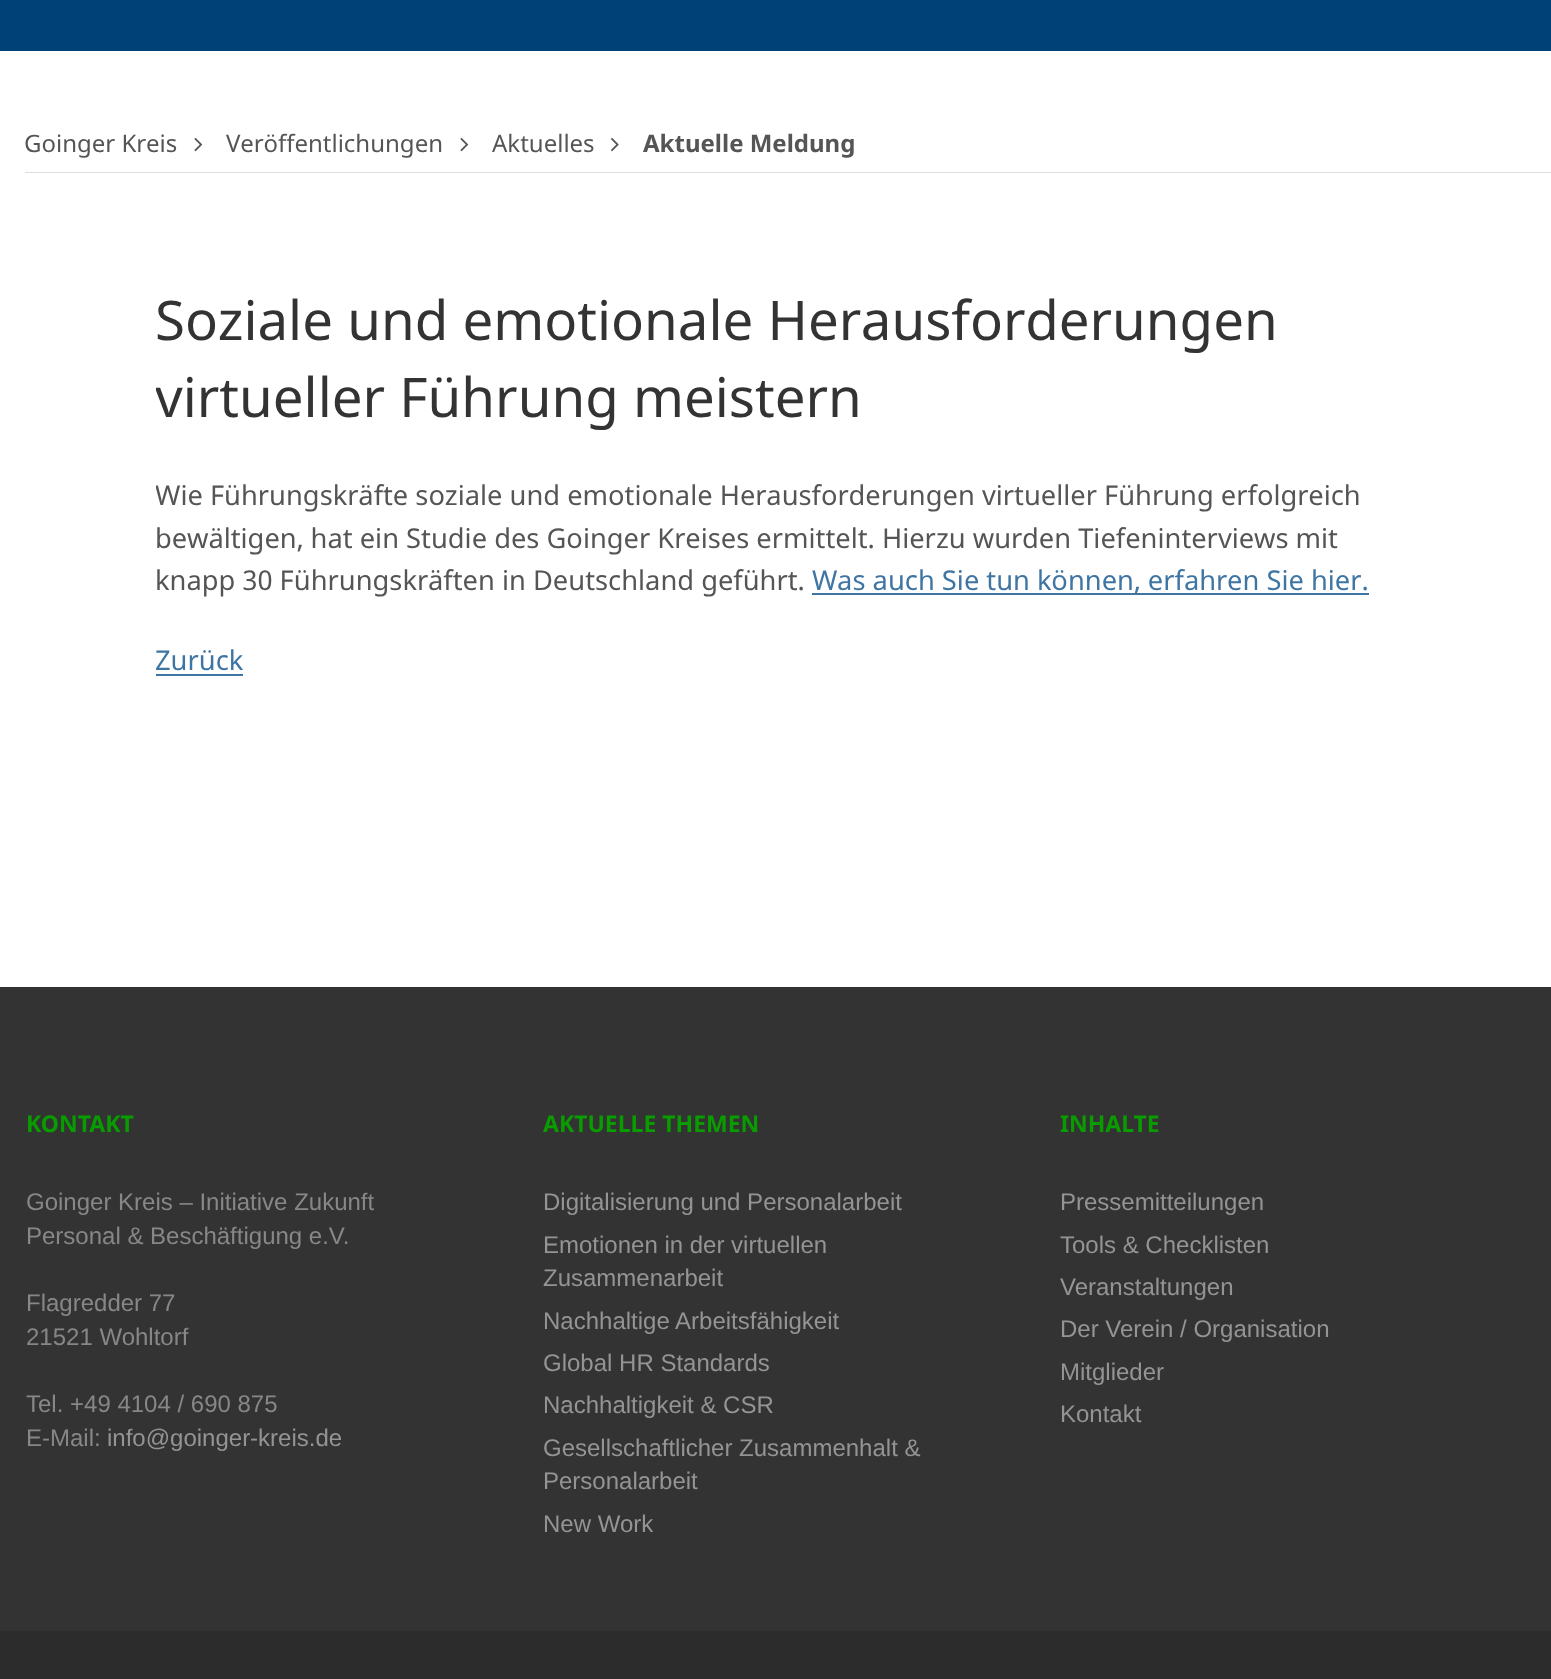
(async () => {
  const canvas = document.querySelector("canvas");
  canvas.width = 1551;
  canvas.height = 1679;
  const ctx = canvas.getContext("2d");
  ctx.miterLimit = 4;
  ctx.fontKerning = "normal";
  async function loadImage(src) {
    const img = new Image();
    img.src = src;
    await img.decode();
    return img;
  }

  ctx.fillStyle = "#ffffff";
  ctx.fillRect(0, 0, 1551, 1679);
  ctx.fillStyle = "#004178";
  ctx.fillRect(0, 0, 1551, 51);
  ctx.fillStyle = "#dddddd";
  ctx.fillRect(25, 172, 1526, 1);
  ctx.drawImage(await loadImage("img/1.png"), 194, 138, 9, 14);
  ctx.drawImage(await loadImage("img/1.png"), 460, 138, 9, 14);
  ctx.drawImage(await loadImage("img/2.png"), 611, 138, 8, 14);
  for (const [x, y, w, h, color] of [
    [812, 593, 557, 2, "#3f75a3"],
    [156, 674, 87, 2, "#3f75a3"],
    [0, 987, 1551, 644, "#333333"],
    [0, 1631, 1551, 48, "#2c2c2c"],
  ]) {
    ctx.fillStyle = color;
    ctx.fillRect(x, y, w, h);
  }
  ctx.font = "24px Noto Sans";
  ctx.fillStyle = "#555555";
  for (const [text, x, y] of [
    ["Goinger Kreis", 24, 152],
    ["Veröffentlichungen", 226, 152],
    ["Aktuelles", 492, 152],
  ]) {
    ctx.fillText(text, x, y);
  }
  ctx.font = "bold 24px Noto Sans";
  ctx.fillText("Aktuelle Meldung", 643, 152);
  ctx.font = "54.6px Noto Sans";
  ctx.fillStyle = "#333333";
  ctx.fillText("Soziale und emotionale Herausforderungen", 155, 340);
  ctx.save();
  ctx.beginPath();
  ctx.rect(156, 284, 1241, 355);
  ctx.clip();
  ctx.fillText("virtueller Führung meistern", 155, 417);
  ctx.restore();
  ctx.save();
  ctx.beginPath();
  ctx.rect(156, 474, 1241, 165);
  ctx.clip();
  ctx.font = "27.3px Noto Sans";
  ctx.fillStyle = "#555555";
  ctx.fillText("Wie Führungskräfte soziale und emotionale Herausforderungen virtueller Führung erfolgreich", 155, 505);
  ctx.restore();
  ctx.font = "27.3px Noto Sans";
  ctx.fillStyle = "#555555";
  ctx.fillText("bewältigen, hat ein Studie des Goinger Kreises ermittelt. Hierzu wurden Tiefeninterviews mit", 155, 548);
  ctx.fillText("knapp 30 Führungskräften in Deutschland geführt.", 155, 590);
  ctx.fillStyle = "#3f75a3";
  ctx.fillText("Was auch Sie tun können, erfahren Sie hier.", 812, 590);
  ctx.fillText("Zurück", 155, 670);
  ctx.font = "bold 23px Noto Sans";
  ctx.fillStyle = "#099c00";
  ctx.fillText("KONTAKT", 26, 1132);
  ctx.font = "24px Liberation Sans";
  ctx.fillStyle = "#878787";
  for (const [text, x, y] of [
    ["Goinger Kreis – Initiative Zukunft", 26, 1210],
    ["Personal & Beschäftigung e.V.", 26, 1244],
    ["Flagredder 77", 26, 1311],
    ["21521 Wohltorf", 26, 1345],
    ["Tel. +49 4104 / 690 875", 26, 1412],
    ["E-Mail:", 26, 1446],
  ]) {
    ctx.fillText(text, x, y);
  }
  ctx.fillStyle = "#949494";
  ctx.fillText("info@goinger-kreis.de", 107, 1446);
  ctx.font = "bold 23px Noto Sans";
  ctx.fillStyle = "#099c00";
  ctx.fillText("AKTUELLE THEMEN", 543, 1132);
  ctx.font = "24px Liberation Sans";
  ctx.fillStyle = "#949494";
  for (const [text, x, y] of [
    ["Digitalisierung und Personalarbeit", 543, 1210],
    ["Emotionen in der virtuellen", 543, 1253],
    ["Zusammenarbeit", 543, 1286],
    ["Nachhaltige Arbeitsfähigkeit", 543, 1329],
    ["Global HR Standards", 543, 1371],
    ["Nachhaltigkeit & CSR", 543, 1413],
    ["Gesellschaftlicher Zusammenhalt &", 543, 1456],
    ["Personalarbeit", 543, 1489],
    ["New Work", 543, 1532],
  ]) {
    ctx.fillText(text, x, y);
  }
  ctx.font = "bold 23px Noto Sans";
  ctx.fillStyle = "#099c00";
  ctx.fillText("INHALTE", 1060, 1132);
  ctx.font = "24px Liberation Sans";
  ctx.fillStyle = "#949494";
  for (const [text, x, y] of [
    ["Pressemitteilungen", 1060, 1210],
    ["Tools & Checklisten", 1060, 1253],
    ["Veranstaltungen", 1060, 1295],
    ["Der Verein / Organisation", 1060, 1337],
    ["Mitglieder", 1060, 1380],
    ["Kontakt", 1060, 1422],
  ]) {
    ctx.fillText(text, x, y);
  }
})();
